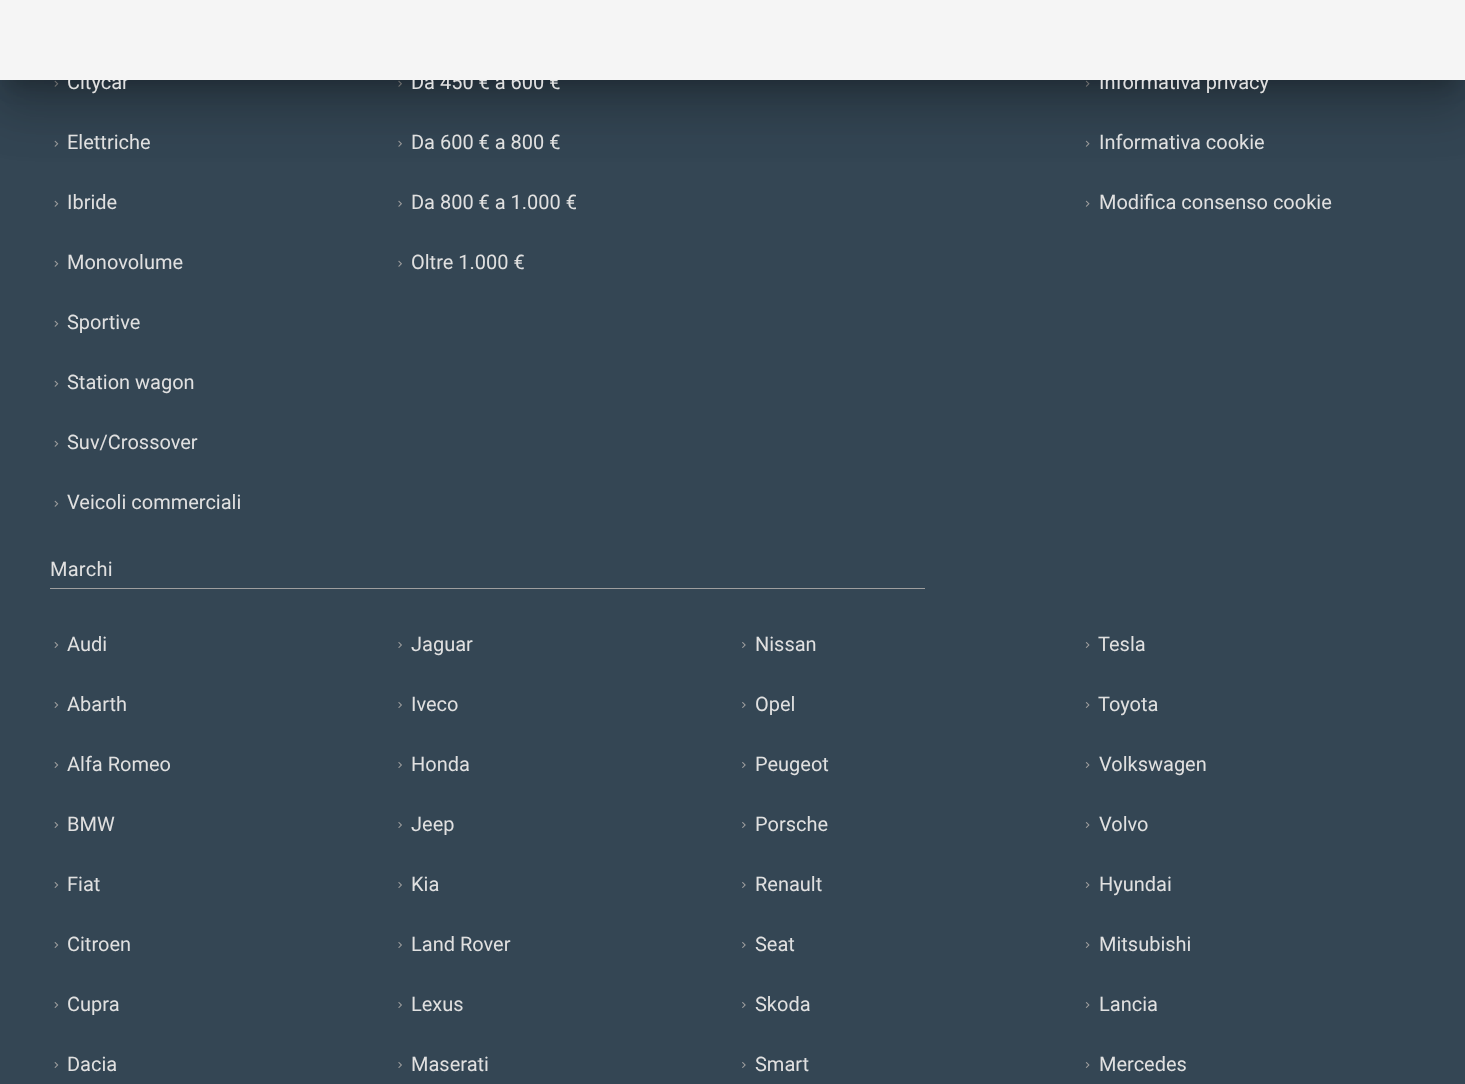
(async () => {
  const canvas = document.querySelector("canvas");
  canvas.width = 1465;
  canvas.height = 1084;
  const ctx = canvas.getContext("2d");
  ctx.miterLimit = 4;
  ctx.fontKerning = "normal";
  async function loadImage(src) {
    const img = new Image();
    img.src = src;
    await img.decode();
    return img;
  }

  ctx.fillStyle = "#344654";
  ctx.fillRect(0, 0, 1465, 1084);
  ctx.drawImage(await loadImage("img/1.png"), 54, 80, 5, 7);
  ctx.drawImage(await loadImage("img/1.png"), 54, 140, 5, 7);
  ctx.drawImage(await loadImage("img/2.png"), 398, 80, 4, 7);
  ctx.drawImage(await loadImage("img/2.png"), 398, 140, 4, 7);
  ctx.drawImage(await loadImage("img/3.png"), 1085, 80, 5, 7);
  ctx.drawImage(await loadImage("img/3.png"), 1085, 140, 5, 7);
  ctx.fillStyle = "rgba(0, 0, 0, 0.12)";
  ctx.filter = "blur(29px)";
  ctx.beginPath();
  ctx.rect(-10, 1, 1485, 100);
  ctx.fill();
  ctx.filter = "none";
  ctx.fillStyle = "rgba(0, 0, 0, 0.14)";
  ctx.filter = "blur(24px)";
  ctx.beginPath();
  ctx.rect(-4, 26, 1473, 88);
  ctx.fill();
  ctx.filter = "none";
  ctx.fillStyle = "rgba(0, 0, 0, 0.2)";
  ctx.filter = "blur(9.5px)";
  ctx.beginPath();
  ctx.rect(9, 23, 1447, 62);
  ctx.fill();
  ctx.filter = "none";
  ctx.drawImage(await loadImage("img/1.png"), 54, 200, 5, 7);
  ctx.drawImage(await loadImage("img/1.png"), 54, 260, 5, 7);
  ctx.drawImage(await loadImage("img/1.png"), 54, 320, 5, 7);
  ctx.drawImage(await loadImage("img/1.png"), 54, 380, 5, 7);
  ctx.drawImage(await loadImage("img/1.png"), 54, 440, 5, 7);
  ctx.drawImage(await loadImage("img/1.png"), 54, 500, 5, 7);
  ctx.drawImage(await loadImage("img/2.png"), 398, 200, 4, 7);
  ctx.drawImage(await loadImage("img/2.png"), 398, 260, 4, 7);
  ctx.drawImage(await loadImage("img/3.png"), 1085, 200, 5, 7);
  ctx.fillStyle = "#9e9e9e";
  ctx.fillRect(50, 588, 875, 1);
  ctx.drawImage(await loadImage("img/4.png"), 54, 642, 5, 6);
  ctx.drawImage(await loadImage("img/4.png"), 54, 702, 5, 6);
  ctx.drawImage(await loadImage("img/4.png"), 54, 762, 5, 6);
  ctx.drawImage(await loadImage("img/4.png"), 54, 822, 5, 6);
  ctx.drawImage(await loadImage("img/4.png"), 54, 882, 5, 6);
  ctx.drawImage(await loadImage("img/4.png"), 54, 942, 5, 6);
  ctx.drawImage(await loadImage("img/4.png"), 54, 1002, 5, 6);
  ctx.drawImage(await loadImage("img/4.png"), 54, 1062, 5, 6);
  ctx.drawImage(await loadImage("img/5.png"), 398, 642, 4, 6);
  ctx.drawImage(await loadImage("img/5.png"), 398, 702, 4, 6);
  ctx.drawImage(await loadImage("img/5.png"), 398, 762, 4, 6);
  ctx.drawImage(await loadImage("img/5.png"), 398, 822, 4, 6);
  ctx.drawImage(await loadImage("img/5.png"), 398, 882, 4, 6);
  ctx.drawImage(await loadImage("img/5.png"), 398, 942, 4, 6);
  ctx.drawImage(await loadImage("img/5.png"), 398, 1002, 4, 6);
  ctx.drawImage(await loadImage("img/5.png"), 398, 1062, 4, 6);
  ctx.drawImage(await loadImage("img/6.png"), 742, 642, 4, 6);
  ctx.drawImage(await loadImage("img/6.png"), 742, 702, 4, 6);
  ctx.drawImage(await loadImage("img/6.png"), 742, 762, 4, 6);
  ctx.drawImage(await loadImage("img/6.png"), 742, 822, 4, 6);
  ctx.drawImage(await loadImage("img/6.png"), 742, 882, 4, 6);
  ctx.drawImage(await loadImage("img/6.png"), 742, 942, 4, 6);
  ctx.drawImage(await loadImage("img/6.png"), 742, 1002, 4, 6);
  ctx.drawImage(await loadImage("img/6.png"), 742, 1062, 4, 6);
  ctx.drawImage(await loadImage("img/7.png"), 1085, 642, 5, 6);
  ctx.drawImage(await loadImage("img/7.png"), 1085, 702, 5, 6);
  ctx.drawImage(await loadImage("img/7.png"), 1085, 762, 5, 6);
  ctx.drawImage(await loadImage("img/7.png"), 1085, 822, 5, 6);
  ctx.drawImage(await loadImage("img/7.png"), 1085, 882, 5, 6);
  ctx.drawImage(await loadImage("img/7.png"), 1085, 942, 5, 6);
  ctx.drawImage(await loadImage("img/7.png"), 1085, 1002, 5, 6);
  ctx.drawImage(await loadImage("img/7.png"), 1085, 1062, 5, 6);
  ctx.font = "20px Roboto";
  ctx.fillStyle = "#e0e0e0";
  for (const [text, x, y] of [
    ["Citycar", 67, 89],
    ["Elettriche", 67, 149],
    ["Ibride", 67, 209],
    ["Monovolume", 67, 269],
    ["Sportive", 67, 329],
    ["Station wagon", 67, 389],
    ["Suv/Crossover", 67, 449],
    ["Veicoli commerciali", 67, 509],
    ["Da 450 € a 600 €", 411, 89],
    ["Da 600 € a 800 €", 411, 149],
    ["Da 800 € a 1.000 €", 411, 209],
    ["Oltre 1.000 €", 411, 269],
    ["Informativa privacy", 1099, 89],
  ]) {
    ctx.fillText(text, x, y);
  }
  ctx.fillStyle = "#f5f5f5";
  ctx.fillRect(0, 0, 1465, 80);
  ctx.fillStyle = "#e0e0e0";
  ctx.fillText("Informativa cookie", 1099, 149);
  ctx.fillText("Modifica consenso cookie", 1099, 209);
  ctx.letterSpacing = "0.25px";
  ctx.fillText("Marchi", 50, 576);
  ctx.letterSpacing = "0px";
  for (const [text, x, y] of [
    ["Audi", 67, 651],
    ["Abarth", 67, 711],
    ["Alfa Romeo", 67, 771],
    ["BMW", 67, 831],
    ["Fiat", 67, 891],
    ["Citroen", 67, 951],
    ["Cupra", 67, 1011],
    ["Dacia", 67, 1071],
    ["Jaguar", 411, 651],
    ["Iveco", 411, 711],
    ["Honda", 411, 771],
    ["Jeep", 411, 831],
    ["Kia", 411, 891],
    ["Land Rover", 411, 951],
    ["Lexus", 411, 1011],
    ["Maserati", 411, 1071],
    ["Nissan", 755, 651],
    ["Opel", 755, 711],
    ["Peugeot", 755, 771],
    ["Porsche", 755, 831],
    ["Renault", 755, 891],
    ["Seat", 755, 951],
    ["Skoda", 755, 1011],
    ["Smart", 755, 1071],
    ["Tesla", 1098, 651],
    ["Toyota", 1098, 711],
    ["Volkswagen", 1099, 771],
    ["Volvo", 1099, 831],
    ["Hyundai", 1099, 891],
    ["Mitsubishi", 1099, 951],
    ["Lancia", 1099, 1011],
    ["Mercedes", 1099, 1071],
  ]) {
    ctx.fillText(text, x, y);
  }
})();
